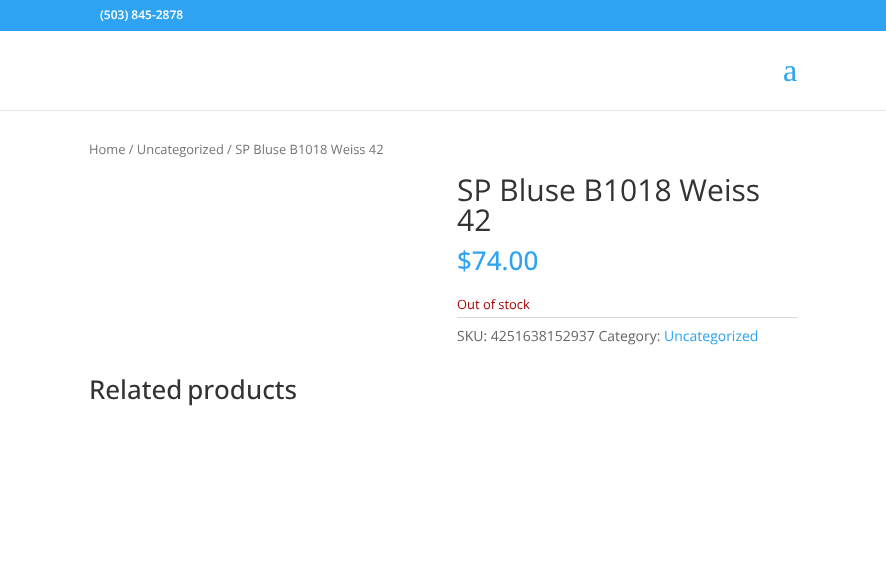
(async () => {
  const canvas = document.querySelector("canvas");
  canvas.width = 886;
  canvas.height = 584;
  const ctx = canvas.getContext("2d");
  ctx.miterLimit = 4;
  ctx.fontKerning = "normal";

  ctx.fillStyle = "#ffffff";
  ctx.fillRect(0, 0, 886, 584);
  for (const [x, y, w, h, color] of [
    [0, 0, 886, 31, "#2ea3f2"],
    [0, 110, 886, 1, "#e6e6e6"],
    [457, 317, 340, 1, "#dadada"],
  ]) {
    ctx.fillStyle = color;
    ctx.fillRect(x, y, w, h);
  }
  ctx.font = "600 12px Open Sans";
  ctx.fillStyle = "#ffffff";
  ctx.fillText("(503) 845-2878", 100, 19);
  ctx.font = "32px Liberation Serif";
  ctx.fillStyle = "#2ea3f2";
  ctx.fillText("a", 783, 81);
  ctx.font = "12.9px Open Sans";
  ctx.fillStyle = "#767676";
  ctx.fillText("Home / Uncategorized / SP Bluse B1018 Weiss 42", 89, 154);
  ctx.font = "30px Open Sans";
  ctx.fillStyle = "#333333";
  ctx.fillText("SP Bluse B1018 Weiss", 457, 201);
  ctx.fillText("42", 457, 231);
  ctx.font = "500 26px Open Sans";
  ctx.fillStyle = "#2ea3f2";
  ctx.fillText("$74.00", 457, 270);
  ctx.font = "12.9px Open Sans";
  ctx.fillStyle = "#aa0000";
  ctx.fillText("Out of stock", 457, 309);
  ctx.font = "14px Open Sans";
  ctx.fillStyle = "#666666";
  ctx.fillText("SKU: 4251638152937 Category:", 457, 341);
  ctx.fillStyle = "#2ea3f2";
  ctx.fillText("Uncategorized", 664, 341);
  ctx.wordSpacing = "-2px";
  ctx.font = "500 26px Open Sans";
  ctx.fillStyle = "#333333";
  ctx.fillText("Related products", 89, 399);
})();
